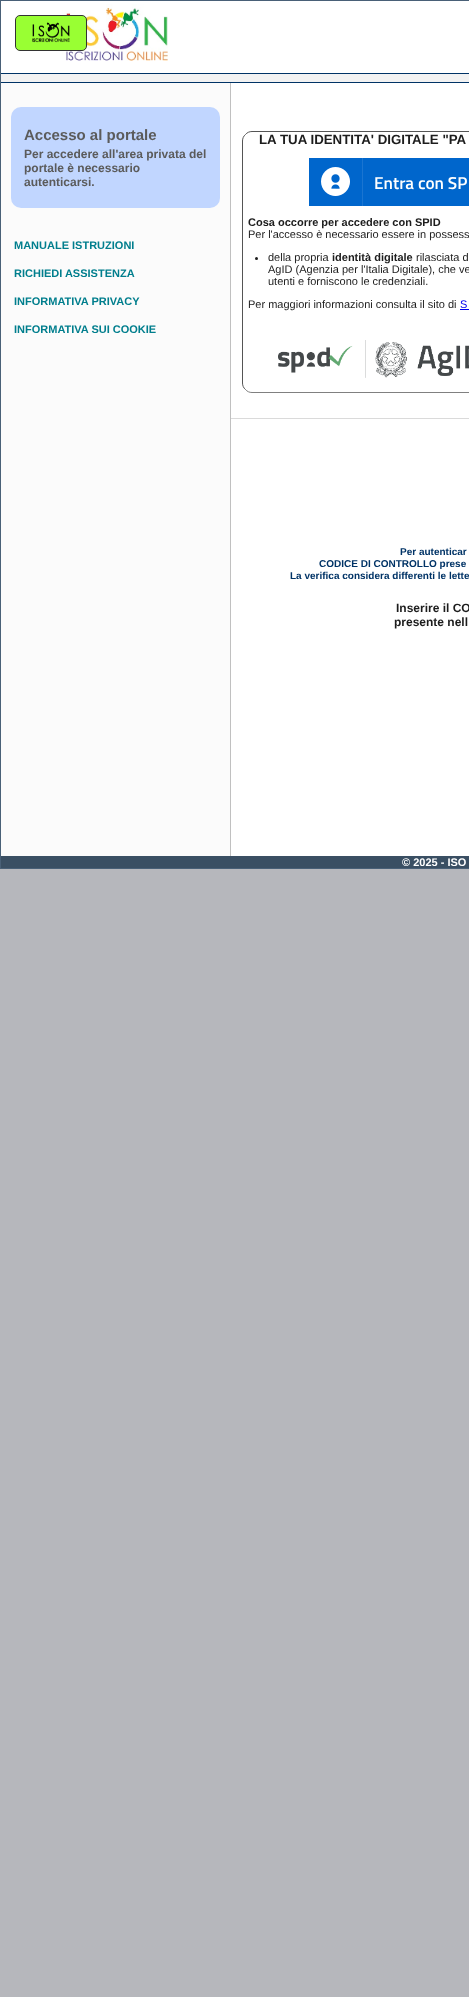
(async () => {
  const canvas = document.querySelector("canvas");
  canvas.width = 469;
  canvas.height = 1997;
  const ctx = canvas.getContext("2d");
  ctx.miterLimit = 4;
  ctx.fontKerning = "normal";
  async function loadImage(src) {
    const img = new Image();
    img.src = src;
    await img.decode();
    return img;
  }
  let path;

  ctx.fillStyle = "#b6b7bc";
  ctx.fillRect(0, 0, 469, 1997);
  ctx.fillStyle = "#ffffff";
  ctx.fillRect(1, 1, 468, 855);
  ctx.strokeStyle = "#496077";
  ctx.strokeRect(0.5, 0.5, 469, 868);
  ctx.drawImage(await loadImage("img/1.png"), 62, 4, 106, 57);
  for (const [x, y, w, h, color] of [
    [1, 74, 468, 8, "#f2f2f2"],
    [1, 73, 468, 1, "#003366"],
    [1, 82, 468, 1, "#003366"],
  ]) {
    ctx.fillStyle = color;
    ctx.fillRect(x, y, w, h);
  }
  ctx.fillStyle = "#99ff33";
  ctx.beginPath();
  ctx.roundRect(15.5, 15.5, 71, 35, 4.5);
  ctx.fill();
  ctx.strokeStyle = "#333333";
  ctx.stroke();
  ctx.drawImage(await loadImage("img/2.png"), 32, 22, 38, 21);
  ctx.fillStyle = "#fbfbfb";
  ctx.fillRect(1, 83, 229, 773);
  ctx.fillStyle = "#c0c0c0";
  ctx.fillRect(230, 83, 1, 773);
  ctx.fillStyle = "#c1d6ff";
  ctx.beginPath();
  ctx.roundRect(11, 107, 209, 101, 10);
  ctx.fill();
  ctx.fillStyle = "#dadada";
  ctx.fillRect(231, 418, 238, 1);
  path = new Path2D("M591.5 134.5C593.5 136 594.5 138.5 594.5 141V383C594.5 385.5 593.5 388 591.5 389.5C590 391.5 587.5 392.5 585 392.5H252C249.5 392.5 247 391.5 245.5 389.5");
  ctx.strokeStyle = "#808080";
  ctx.stroke(path);
  path = new Path2D("M245.5 389.5C243.5 388 242.5 385.5 242.5 383V141C242.5 138.5 243.5 136 245.5 134.5C247 132.5 249.5 131.5 252 131.5H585C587.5 131.5 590 132.5 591.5 134.5");
  ctx.strokeStyle = "#555555";
  ctx.stroke(path);
  ctx.fillStyle = "#0066cc";
  ctx.fillRect(309, 158, 160, 48);
  ctx.fillStyle = "#1a75d1";
  ctx.fillRect(362, 158, 1, 48);
  ctx.drawImage(await loadImage("img/3.png"), 321, 167, 29, 29);
  ctx.fillStyle = "#1d1d1d";
  ctx.beginPath();
  ctx.arc(256.5, 258.5, 1.5, 0, Math.PI * 2);
  ctx.fill();
  ctx.fillStyle = "#0000ee";
  ctx.fillRect(460, 309, 9, 1);
  ctx.drawImage(await loadImage("img/4.png"), 278, 340, 191, 38);
  ctx.fillStyle = "#3a4f63";
  ctx.fillRect(1, 856, 468, 12);
  ctx.font = "bold 15px Liberation Sans";
  ctx.fillStyle = "#5b5b5b";
  ctx.fillText("Accesso al portale", 24, 140);
  ctx.font = "bold 12px Liberation Sans";
  for (const [text, x, y] of [
    ["Per accedere all'area privata del", 24, 158],
    ["portale è necessario", 24, 172],
    ["autenticarsi.", 24, 186],
  ]) {
    ctx.fillText(text, x, y);
  }
  ctx.font = "bold 11px Liberation Sans";
  ctx.fillStyle = "#007e8d";
  for (const [text, x, y] of [
    ["MANUALE ISTRUZIONI", 14, 249],
    ["RICHIEDI ASSISTENZA", 14, 277],
    ["INFORMATIVA PRIVACY", 14, 305],
    ["INFORMATIVA SUI COOKIE", 14, 333],
  ]) {
    ctx.fillText(text, x, y);
  }
  ctx.font = "bold 13.3px Liberation Sans";
  ctx.fillStyle = "#1d1d1d";
  ctx.fillText("LA TUA IDENTITA' DIGITALE \"PA", 259, 144);
  ctx.font = "600 17.25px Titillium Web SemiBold";
  ctx.fillStyle = "#ffffff";
  ctx.fillText("Entra con SP", 374, 189);
  ctx.font = "bold 11px Liberation Sans";
  ctx.fillStyle = "#1d1d1d";
  ctx.fillText("Cosa occorre per accedere con SPID", 248, 226);
  ctx.font = "11px Liberation Sans";
  ctx.fillText("Per l'accesso è necessario essere in possess", 248, 238);
  ctx.fillText("della propria", 268, 261);
  ctx.font = "bold 11px Liberation Sans";
  ctx.fillText("identità digitale", 332, 261);
  ctx.font = "11px Liberation Sans";
  for (const [text, x, y] of [
    ["rilasciata d", 416, 261],
    ["AgID (Agenzia per l'Italia Digitale), che ve", 268, 273],
    ["utenti e forniscono le credenziali.", 268, 285],
    ["Per maggiori informazioni consulta il sito di", 248, 308],
  ]) {
    ctx.fillText(text, x, y);
  }
  ctx.fillStyle = "#0000ee";
  ctx.fillText("S", 460, 308);
  ctx.font = "bold 10px Liberation Sans";
  ctx.fillStyle = "#003366";
  for (const [text, x, y] of [
    ["Per autenticar", 400, 555],
    ["CODICE DI CONTROLLO prese", 319, 567],
    ["La verifica considera differenti le lette", 290, 579],
  ]) {
    ctx.fillText(text, x, y);
  }
  ctx.font = "bold 12px Liberation Sans";
  ctx.fillStyle = "#1d1d1d";
  ctx.fillText("Inserire il CO", 396, 612);
  ctx.fillText("presente nell", 394, 626);
  ctx.font = "bold 11px Liberation Sans";
  ctx.fillStyle = "#ffffff";
  ctx.fillText("© 2025 - ISO", 402, 866);
})();
